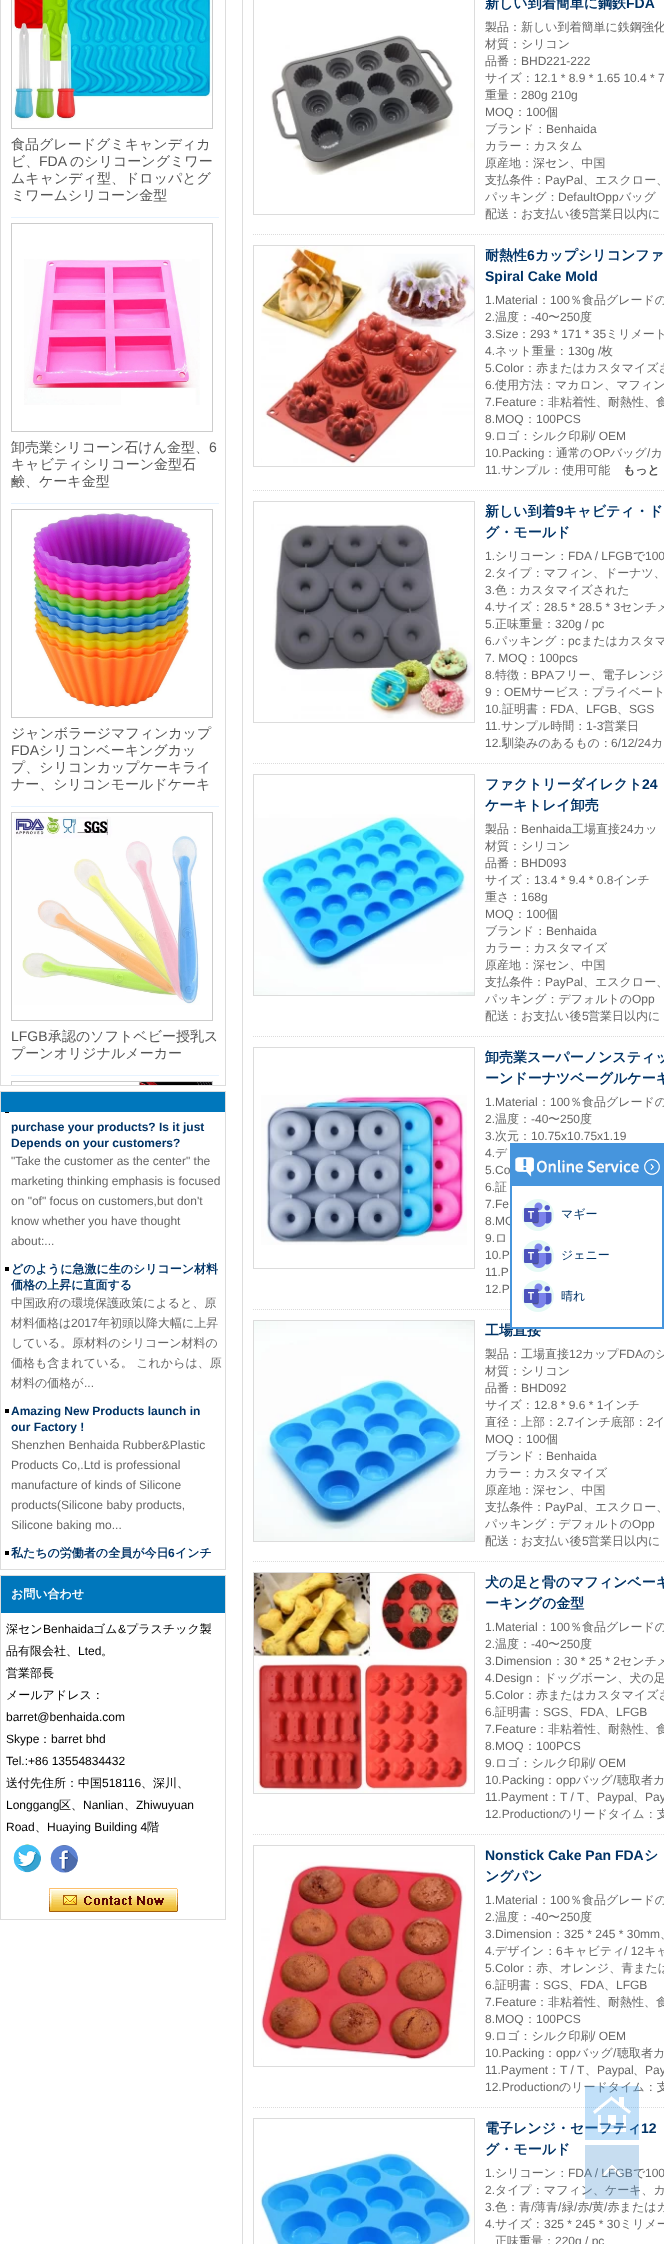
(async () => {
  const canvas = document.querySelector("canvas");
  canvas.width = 664;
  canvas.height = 2244;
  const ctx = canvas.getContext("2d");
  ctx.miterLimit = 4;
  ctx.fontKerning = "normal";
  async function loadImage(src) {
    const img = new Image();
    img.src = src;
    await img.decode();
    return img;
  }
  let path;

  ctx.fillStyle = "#ffffff";
  ctx.fillRect(0, 0, 664, 2244);
  ctx.strokeStyle = "#dddddd";
  ctx.strokeRect(0.5, -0.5, 225, 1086);
  ctx.fillStyle = "#e7f3ff";
  ctx.fillRect(11, 217, 208, 1);
  ctx.strokeStyle = "#cccccc";
  ctx.strokeRect(11.5, -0.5, 201, 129);
  ctx.drawImage(await loadImage("img/1.png"), 12, 0, 200, 121);
  ctx.fillRect(11, 503, 208, 1);
  ctx.strokeRect(11.5, 223.5, 201, 208);
  ctx.drawImage(await loadImage("img/2.png"), 24, 259, 176, 146);
  ctx.fillRect(11, 806, 208, 1);
  ctx.strokeRect(11.5, 509.5, 201, 208);
  ctx.drawImage(await loadImage("img/3.png"), 31, 512, 161, 196);
  ctx.fillRect(11, 1075, 208, 1);
  ctx.strokeRect(11.5, 812.5, 201, 208);
  ctx.drawImage(await loadImage("img/4.png"), 14, 816, 186, 189);
  ctx.strokeStyle = "#dddddd";
  ctx.strokeRect(0.5, 1091.5, 225, 478);
  ctx.fillStyle = "#0077bc";
  ctx.fillRect(1, 1092, 224, 20);
  ctx.save();
  ctx.beginPath();
  ctx.rect(1, 0, 222, 1085);
  ctx.clip();
  ctx.strokeStyle = "#cccccc";
  ctx.strokeRect(11.5, 1081.5, 201, 208);
  ctx.restore();
  ctx.drawImage(await loadImage("img/5.png"), 138, 1082, 74, 3);
  for (const [x, y, w, h, color] of [
    [5, 1112, 4, 1, "#000000"],
    [5, 1267, 4, 4, "#000000"],
    [5, 1409, 4, 4, "#000000"],
    [5, 1551, 4, 4, "#000000"],
  ]) {
    ctx.fillStyle = color;
    ctx.fillRect(x, y, w, h);
  }
  ctx.strokeRect(0.5, 1575.5, 225, 344);
  ctx.fillStyle = "#0077bc";
  ctx.fillRect(1, 1576, 224, 37);
  ctx.drawImage(await loadImage("img/6.png"), 13, 1844, 28, 29);
  ctx.drawImage(await loadImage("img/7.png"), 50, 1845, 28, 28);
  ctx.drawImage(await loadImage("img/8.png"), 49, 1888, 129, 24);
  ctx.strokeRect(242.5, -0.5, 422, 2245);
  path = new Path2D("M253 234.5H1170");
  ctx.strokeStyle = "#dcdcdc";
  ctx.setLineDash([1, 1]);
  ctx.stroke(path);
  ctx.setLineDash([]);
  ctx.strokeRect(253.5, -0.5, 221, 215);
  ctx.drawImage(await loadImage("img/9.png"), 270, 35, 204, 140);
  path = new Path2D("M253 490.5H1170");
  ctx.setLineDash([1, 1]);
  ctx.stroke(path);
  ctx.setLineDash([]);
  ctx.strokeRect(253.5, 245.5, 221, 221);
  ctx.drawImage(await loadImage("img/10.png"), 261, 246, 213, 220);
  path = new Path2D("M253 763.5H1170");
  ctx.setLineDash([1, 1]);
  ctx.stroke(path);
  ctx.setLineDash([]);
  ctx.strokeRect(253.5, 501.5, 221, 221);
  ctx.drawImage(await loadImage("img/11.png"), 271, 524, 203, 196);
  path = new Path2D("M253 1036.5H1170");
  ctx.setLineDash([1, 1]);
  ctx.stroke(path);
  ctx.setLineDash([]);
  ctx.strokeRect(253.5, 774.5, 221, 221);
  ctx.drawImage(await loadImage("img/12.png"), 254, 814, 220, 181);
  path = new Path2D("M253 1309.5H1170");
  ctx.setLineDash([1, 1]);
  ctx.stroke(path);
  ctx.setLineDash([]);
  ctx.strokeRect(253.5, 1047.5, 221, 221);
  ctx.drawImage(await loadImage("img/13.png"), 261, 1095, 206, 150);
  path = new Path2D("M253 1561.5H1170");
  ctx.setLineDash([1, 1]);
  ctx.stroke(path);
  ctx.setLineDash([]);
  ctx.strokeRect(253.5, 1320.5, 221, 221);
  ctx.drawImage(await loadImage("img/14.png"), 254, 1321, 220, 220);
  path = new Path2D("M253 1834.5H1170");
  ctx.setLineDash([1, 1]);
  ctx.stroke(path);
  ctx.setLineDash([]);
  ctx.strokeRect(253.5, 1572.5, 221, 221);
  ctx.drawImage(await loadImage("img/15.png"), 254, 1573, 216, 220);
  path = new Path2D("M253 2107.5H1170");
  ctx.setLineDash([1, 1]);
  ctx.stroke(path);
  ctx.setLineDash([]);
  ctx.strokeRect(253.5, 1845.5, 221, 221);
  ctx.drawImage(await loadImage("img/16.png"), 261, 1862, 205, 198);
  ctx.strokeRect(253.5, 2118.5, 221, 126);
  ctx.drawImage(await loadImage("img/17.png"), 260, 2151, 214, 93);
  ctx.drawImage(await loadImage("img/18.png"), 510, 1143, 154, 46);
  ctx.drawImage(await loadImage("img/19.png"), 644, 1159, 16, 16);
  ctx.font = "500 14px WenQuanYi Zen Hei";
  ctx.fillStyle = "#555555";
  ctx.fillText("食品グレードグミキャンディカ", 11, 149);
  ctx.fillText("ビ、", 11, 166);
  ctx.font = "14px Liberation Sans";
  ctx.fillText("FDA", 39, 166);
  ctx.font = "500 14px WenQuanYi Zen Hei";
  for (const [text, x, y] of [
    ["のシリコーングミワー", 70, 166],
    ["ムキャンディ型、ドロッパとグ", 11, 183],
    ["ミワームシリコーン金型", 11, 200],
    ["卸売業シリコーン石けん金型、", 11, 452],
  ]) {
    ctx.fillText(text, x, y);
  }
  ctx.font = "14px Liberation Sans";
  ctx.fillText("6", 209, 452);
  ctx.font = "500 14px WenQuanYi Zen Hei";
  for (const [text, x, y] of [
    ["キャビティシリコーン金型石", 11, 469],
    ["鹸、ケーキ金型", 11, 486],
    ["ジャンボラージマフィンカップ", 11, 738],
  ]) {
    ctx.fillText(text, x, y);
  }
  ctx.font = "14px Liberation Sans";
  ctx.fillText("FDA", 11, 755);
  ctx.font = "500 14px WenQuanYi Zen Hei";
  for (const [text, x, y] of [
    ["シリコンベーキングカッ", 39, 755],
    ["プ、シリコンカップケーキライ", 11, 772],
    ["ナー、シリコンモールドケーキ", 11, 789],
  ]) {
    ctx.fillText(text, x, y);
  }
  ctx.font = "14px Liberation Sans";
  ctx.fillText("LFGB", 11, 1041);
  ctx.font = "500 14px WenQuanYi Zen Hei";
  ctx.fillText("承認のソフトベビー授乳ス", 48, 1041);
  ctx.fillText("プーンオリジナルメーカー", 11, 1058);
  ctx.font = "bold 12px Liberation Sans";
  ctx.fillStyle = "#003366";
  ctx.fillText("purchase your products? Is it just", 11, 1131);
  ctx.fillText("Depends on your customers?", 11, 1147);
  ctx.font = "12px Liberation Sans";
  ctx.fillStyle = "#666666";
  for (const [text, x, y] of [
    ["\"Take the customer as the center\" the", 11, 1165],
    ["marketing thinking emphasis is focused", 11, 1185],
    ["on \"of\" focus on customers,but don't", 11, 1205],
    ["know whether you have thought", 11, 1225],
    ["about:...", 11, 1245],
  ]) {
    ctx.fillText(text, x, y);
  }
  ctx.font = "bold 12px WenQuanYi Zen Hei";
  ctx.fillStyle = "#003366";
  ctx.fillText("どのように急激に生のシリコーン材料", 11, 1273);
  ctx.fillText("価格の上昇に直面する", 11, 1289);
  ctx.font = "500 12px WenQuanYi Zen Hei";
  ctx.fillStyle = "#666666";
  ctx.fillText("中国政府の環境保護政策によると、原", 11, 1307);
  ctx.fillText("材料価格は", 11, 1327);
  ctx.font = "12px Liberation Sans";
  ctx.fillText("2017", 71, 1327);
  ctx.font = "500 12px WenQuanYi Zen Hei";
  for (const [text, x, y] of [
    ["年初頭以降大幅に上昇", 98, 1327],
    ["している。原材料のシリコーン材料の", 11, 1347],
    ["価格も含まれている。 これからは、原", 11, 1367],
    ["材料の価格が", 11, 1387],
  ]) {
    ctx.fillText(text, x, y);
  }
  ctx.font = "12px Liberation Sans";
  ctx.fillText("...", 84, 1387);
  ctx.font = "bold 12px Liberation Sans";
  ctx.fillStyle = "#003366";
  ctx.fillText("Amazing New Products launch in", 11, 1415);
  ctx.fillText("our Factory !", 11, 1431);
  ctx.font = "12px Liberation Sans";
  ctx.fillStyle = "#666666";
  for (const [text, x, y] of [
    ["Shenzhen Benhaida Rubber&Plastic", 11, 1449],
    ["Products Co,.Ltd is professional", 11, 1469],
    ["manufacture of kinds of Silicone", 11, 1489],
    ["products(Silicone baby products,", 11, 1509],
    ["Silicone baking mo...", 11, 1529],
  ]) {
    ctx.fillText(text, x, y);
  }
  ctx.font = "bold 12px WenQuanYi Zen Hei";
  ctx.fillStyle = "#003366";
  ctx.fillText("私たちの労働者の全員が今日", 11, 1557);
  ctx.font = "bold 12px Liberation Sans";
  ctx.fillText("6", 168, 1557);
  ctx.font = "bold 12px WenQuanYi Zen Hei";
  ctx.fillText("インチ", 175, 1557);
  ctx.fillStyle = "#ffffff";
  ctx.fillText("お問い合わせ", 11, 1598);
  ctx.font = "500 12px WenQuanYi Zen Hei";
  ctx.fillStyle = "#000000";
  ctx.fillText("深セン", 6, 1633);
  ctx.font = "12px Liberation Sans";
  ctx.fillText("Benhaida", 43, 1633);
  ctx.font = "500 12px WenQuanYi Zen Hei";
  ctx.fillText("ゴム", 93, 1633);
  ctx.font = "12px Liberation Sans";
  ctx.fillText("&", 118, 1633);
  ctx.font = "500 12px WenQuanYi Zen Hei";
  ctx.fillText("プラスチック製", 126, 1633);
  ctx.fillText("品有限会社、", 6, 1655);
  ctx.font = "12px Liberation Sans";
  ctx.fillText("Lted", 78, 1655);
  ctx.font = "500 12px WenQuanYi Zen Hei";
  for (const [text, x, y] of [
    ["。", 101, 1655],
    ["営業部長", 6, 1677],
    ["メールアドレス：", 6, 1699],
  ]) {
    ctx.fillText(text, x, y);
  }
  ctx.font = "12px Liberation Sans";
  ctx.fillText("barret@benhaida.com", 6, 1721);
  ctx.fillText("Skype", 6, 1743);
  ctx.font = "500 12px WenQuanYi Zen Hei";
  ctx.fillText("：", 39, 1743);
  ctx.font = "12px Liberation Sans";
  ctx.fillText("barret bhd", 51, 1743);
  ctx.fillText("Tel.:+86 13554834432", 6, 1765);
  ctx.font = "500 12px WenQuanYi Zen Hei";
  ctx.fillText("送付先住所：中国", 6, 1787);
  ctx.font = "12px Liberation Sans";
  ctx.fillText("518116", 102, 1787);
  ctx.font = "500 12px WenQuanYi Zen Hei";
  ctx.fillText("、深川、", 141, 1787);
  ctx.font = "12px Liberation Sans";
  ctx.fillText("Longgang", 6, 1809);
  ctx.font = "500 12px WenQuanYi Zen Hei";
  ctx.fillText("区、", 59, 1809);
  ctx.font = "12px Liberation Sans";
  ctx.fillText("Nanlian", 83, 1809);
  ctx.font = "500 12px WenQuanYi Zen Hei";
  ctx.fillText("、", 124, 1809);
  ctx.font = "12px Liberation Sans";
  ctx.fillText("Zhiwuyuan", 136, 1809);
  ctx.fillText("Road", 6, 1831);
  ctx.font = "500 12px WenQuanYi Zen Hei";
  ctx.fillText("、", 35, 1831);
  ctx.font = "12px Liberation Sans";
  ctx.fillText("Huaying Building 4", 47, 1831);
  ctx.font = "500 12px WenQuanYi Zen Hei";
  ctx.fillText("階", 147, 1831);
  ctx.font = "bold 14px WenQuanYi Zen Hei";
  ctx.fillStyle = "#003366";
  ctx.fillText("新しい到着簡単に鋼鉄", 485, 8);
  ctx.font = "bold 14px Liberation Sans";
  ctx.fillText("FDA", 626, 8);
  ctx.font = "500 12px WenQuanYi Zen Hei";
  ctx.fillStyle = "#666666";
  for (const [text, x, y] of [
    ["製品：新しい到着簡単に鉄鋼強化", 485, 31],
    ["材質：シリコン", 485, 48],
    ["品番：", 485, 65],
  ]) {
    ctx.fillText(text, x, y);
  }
  ctx.font = "12px Liberation Sans";
  ctx.fillText("BHD221-222", 521, 65);
  ctx.font = "500 12px WenQuanYi Zen Hei";
  ctx.fillText("サイズ：", 485, 82);
  ctx.font = "12px Liberation Sans";
  ctx.fillText("12.1 * 8.9 * 1.65 10.4 * 7", 534, 82);
  ctx.font = "500 12px WenQuanYi Zen Hei";
  ctx.fillText("重量：", 485, 99);
  ctx.font = "12px Liberation Sans";
  ctx.fillText("280g 210g", 521, 99);
  ctx.fillText("MOQ", 485, 116);
  ctx.font = "500 12px WenQuanYi Zen Hei";
  ctx.fillText("：", 514, 116);
  ctx.font = "12px Liberation Sans";
  ctx.fillText("100", 526, 116);
  ctx.font = "500 12px WenQuanYi Zen Hei";
  ctx.fillText("個", 546, 116);
  ctx.fillText("ブランド：", 485, 133);
  ctx.font = "12px Liberation Sans";
  ctx.fillText("Benhaida", 546, 133);
  ctx.font = "500 12px WenQuanYi Zen Hei";
  for (const [text, x, y] of [
    ["カラー：カスタム", 485, 150],
    ["原産地：深セン、中国", 485, 167],
    ["支払条件：", 485, 184],
  ]) {
    ctx.fillText(text, x, y);
  }
  ctx.font = "12px Liberation Sans";
  ctx.fillText("PayPal", 545, 184);
  ctx.font = "500 12px WenQuanYi Zen Hei";
  ctx.fillText("、エスクロー、", 583, 184);
  ctx.fillText("パッキング：", 485, 201);
  ctx.font = "12px Liberation Sans";
  ctx.fillText("DefaultOpp", 558, 201);
  ctx.font = "500 12px WenQuanYi Zen Hei";
  ctx.fillText("バッグ", 619, 201);
  ctx.fillText("配送：お支払い後", 485, 218);
  ctx.font = "12px Liberation Sans";
  ctx.fillText("5", 582, 218);
  ctx.font = "500 12px WenQuanYi Zen Hei";
  ctx.fillText("営業日以内に", 588, 218);
  ctx.font = "bold 14px WenQuanYi Zen Hei";
  ctx.fillStyle = "#003366";
  ctx.fillText("耐熱性", 485, 260);
  ctx.font = "bold 14px Liberation Sans";
  ctx.fillText("6", 527, 260);
  ctx.font = "bold 14px WenQuanYi Zen Hei";
  ctx.fillText("カップシリコンファ", 535, 260);
  ctx.font = "bold 14px Liberation Sans";
  ctx.fillText("Spiral Cake Mold", 485, 281);
  ctx.font = "12px Liberation Sans";
  ctx.fillStyle = "#666666";
  ctx.fillText("1.Material", 485, 304);
  ctx.font = "500 12px WenQuanYi Zen Hei";
  ctx.fillText("：", 538, 304);
  ctx.font = "12px Liberation Sans";
  ctx.fillText("100", 550, 304);
  ctx.font = "500 12px WenQuanYi Zen Hei";
  ctx.fillText("％食品グレードの", 570, 304);
  ctx.font = "12px Liberation Sans";
  ctx.fillText("2.", 485, 321);
  ctx.font = "500 12px WenQuanYi Zen Hei";
  ctx.fillText("温度：", 495, 321);
  ctx.font = "12px Liberation Sans";
  ctx.fillText("-40", 531, 321);
  ctx.font = "500 12px WenQuanYi Zen Hei";
  ctx.fillText("〜", 548, 321);
  ctx.font = "12px Liberation Sans";
  ctx.fillText("250", 560, 321);
  ctx.font = "500 12px WenQuanYi Zen Hei";
  ctx.fillText("度", 580, 321);
  ctx.font = "12px Liberation Sans";
  ctx.fillText("3.Size", 485, 338);
  ctx.font = "500 12px WenQuanYi Zen Hei";
  ctx.fillText("：", 518, 338);
  ctx.font = "12px Liberation Sans";
  ctx.fillText("293 * 171 * 35", 530, 338);
  ctx.font = "500 12px WenQuanYi Zen Hei";
  ctx.fillText("ミリメート", 606, 338);
  ctx.font = "12px Liberation Sans";
  ctx.fillText("4.", 485, 355);
  ctx.font = "500 12px WenQuanYi Zen Hei";
  ctx.fillText("ネット重量：", 495, 355);
  ctx.font = "12px Liberation Sans";
  ctx.fillText("130g /", 568, 355);
  ctx.font = "500 12px WenQuanYi Zen Hei";
  ctx.fillText("枚", 601, 355);
  ctx.font = "12px Liberation Sans";
  ctx.fillText("5.Color", 485, 372);
  ctx.font = "500 12px WenQuanYi Zen Hei";
  ctx.fillText("：赤またはカスタマイズさ", 524, 372);
  ctx.font = "12px Liberation Sans";
  ctx.fillText("6.", 485, 389);
  ctx.font = "500 12px WenQuanYi Zen Hei";
  ctx.fillText("使用方法：マカロン、マフィン", 495, 389);
  ctx.font = "12px Liberation Sans";
  ctx.fillText("7.Feature", 485, 406);
  ctx.font = "500 12px WenQuanYi Zen Hei";
  ctx.fillText("：非粘着性、耐熱性、食", 536, 406);
  ctx.font = "12px Liberation Sans";
  ctx.fillText("8.MOQ", 485, 423);
  ctx.font = "500 12px WenQuanYi Zen Hei";
  ctx.fillText("：", 524, 423);
  ctx.font = "12px Liberation Sans";
  ctx.fillText("100PCS", 536, 423);
  ctx.fillText("9.", 485, 440);
  ctx.font = "500 12px WenQuanYi Zen Hei";
  ctx.fillText("ロゴ：シルク印刷", 495, 440);
  ctx.font = "12px Liberation Sans";
  ctx.fillText("/ OEM", 592, 440);
  ctx.fillText("10.Packing", 485, 457);
  ctx.font = "500 12px WenQuanYi Zen Hei";
  ctx.fillText("：通常の", 544, 457);
  ctx.font = "12px Liberation Sans";
  ctx.fillText("OP", 593, 457);
  ctx.font = "500 12px WenQuanYi Zen Hei";
  ctx.fillText("バッグ カ", 610, 457);
  ctx.font = "12px Liberation Sans";
  ctx.fillText("/", 647, 457);
  ctx.fillText("11.", 485, 474);
  ctx.font = "500 12px WenQuanYi Zen Hei";
  ctx.fillText("サンプル：使用可能", 501, 474);
  ctx.font = "bold 12px WenQuanYi Zen Hei";
  ctx.fillStyle = "#4e4e4e";
  ctx.fillText("もっと", 623, 474);
  ctx.font = "bold 14px WenQuanYi Zen Hei";
  ctx.fillStyle = "#003366";
  ctx.fillText("新しい到着", 485, 516);
  ctx.font = "bold 14px Liberation Sans";
  ctx.fillText("9", 556, 516);
  ctx.font = "bold 14px WenQuanYi Zen Hei";
  ctx.fillText("キャビティ・ド", 563, 516);
  ctx.fillText("グ・モールド", 485, 537);
  ctx.font = "12px Liberation Sans";
  ctx.fillStyle = "#666666";
  ctx.fillText("1.", 485, 560);
  ctx.font = "500 12px WenQuanYi Zen Hei";
  ctx.fillText("シリコーン：", 495, 560);
  ctx.font = "12px Liberation Sans";
  ctx.fillText("FDA / LFGB", 568, 560);
  ctx.font = "500 12px WenQuanYi Zen Hei";
  ctx.fillText("で", 633, 560);
  ctx.font = "12px Liberation Sans";
  ctx.fillText("100", 645, 560);
  ctx.fillText("2.", 485, 577);
  ctx.font = "500 12px WenQuanYi Zen Hei";
  ctx.fillText("タイプ：マフィン、ドーナツ、", 495, 577);
  ctx.font = "12px Liberation Sans";
  ctx.fillText("3.", 485, 594);
  ctx.font = "500 12px WenQuanYi Zen Hei";
  ctx.fillText("色：カスタマイズされた", 495, 594);
  ctx.font = "12px Liberation Sans";
  ctx.fillText("4.", 485, 611);
  ctx.font = "500 12px WenQuanYi Zen Hei";
  ctx.fillText("サイズ：", 495, 611);
  ctx.font = "12px Liberation Sans";
  ctx.fillText("28.5 * 28.5 * 3", 544, 611);
  ctx.font = "500 12px WenQuanYi Zen Hei";
  ctx.fillText("センチメ", 620, 611);
  ctx.font = "12px Liberation Sans";
  ctx.fillText("5.", 485, 628);
  ctx.font = "500 12px WenQuanYi Zen Hei";
  ctx.fillText("正味重量：", 495, 628);
  ctx.font = "12px Liberation Sans";
  ctx.fillText("320g / pc", 555, 628);
  ctx.fillText("6.", 485, 645);
  ctx.font = "500 12px WenQuanYi Zen Hei";
  ctx.fillText("パッキング：", 495, 645);
  ctx.font = "12px Liberation Sans";
  ctx.fillText("pc", 568, 645);
  ctx.font = "500 12px WenQuanYi Zen Hei";
  ctx.fillText("またはカスタマ", 581, 645);
  ctx.font = "12px Liberation Sans";
  ctx.fillText("7. MOQ", 485, 662);
  ctx.font = "500 12px WenQuanYi Zen Hei";
  ctx.fillText("：", 527, 662);
  ctx.font = "12px Liberation Sans";
  ctx.fillText("100pcs", 539, 662);
  ctx.fillText("8.", 485, 679);
  ctx.font = "500 12px WenQuanYi Zen Hei";
  ctx.fillText("特徴：", 495, 679);
  ctx.font = "12px Liberation Sans";
  ctx.fillText("BPA", 531, 679);
  ctx.font = "500 12px WenQuanYi Zen Hei";
  ctx.fillText("フリー、電子レンジ", 554, 679);
  ctx.font = "12px Liberation Sans";
  ctx.fillText("9", 485, 696);
  ctx.font = "500 12px WenQuanYi Zen Hei";
  ctx.fillText("：", 492, 696);
  ctx.font = "12px Liberation Sans";
  ctx.fillText("OEM", 504, 696);
  ctx.font = "500 12px WenQuanYi Zen Hei";
  ctx.fillText("サービス：プライベート", 531, 696);
  ctx.font = "12px Liberation Sans";
  ctx.fillText("10.", 485, 713);
  ctx.font = "500 12px WenQuanYi Zen Hei";
  ctx.fillText("証明書：", 502, 713);
  ctx.font = "12px Liberation Sans";
  ctx.fillText("FDA", 550, 713);
  ctx.font = "500 12px WenQuanYi Zen Hei";
  ctx.fillText("、", 574, 713);
  ctx.font = "12px Liberation Sans";
  ctx.fillText("LFGB", 586, 713);
  ctx.font = "500 12px WenQuanYi Zen Hei";
  ctx.fillText("、", 617, 713);
  ctx.font = "12px Liberation Sans";
  ctx.fillText("SGS", 629, 713);
  ctx.fillText("11.", 485, 730);
  ctx.font = "500 12px WenQuanYi Zen Hei";
  ctx.fillText("サンプル時間：", 501, 730);
  ctx.font = "12px Liberation Sans";
  ctx.fillText("1-3", 586, 730);
  ctx.font = "500 12px WenQuanYi Zen Hei";
  ctx.fillText("営業日", 603, 730);
  ctx.font = "12px Liberation Sans";
  ctx.fillText("12.", 485, 747);
  ctx.font = "500 12px WenQuanYi Zen Hei";
  ctx.fillText("馴染みのあるもの：", 502, 747);
  ctx.font = "12px Liberation Sans";
  ctx.fillText("6/12/24", 611, 747);
  ctx.font = "500 12px WenQuanYi Zen Hei";
  ctx.fillText("カ", 651, 747);
  ctx.font = "bold 14px WenQuanYi Zen Hei";
  ctx.fillStyle = "#003366";
  ctx.fillText("ファクトリーダイレクト", 485, 789);
  ctx.font = "bold 14px Liberation Sans";
  ctx.fillText("24", 642, 789);
  ctx.font = "bold 14px WenQuanYi Zen Hei";
  ctx.fillText("ケーキトレイ卸売", 485, 810);
  ctx.font = "500 12px WenQuanYi Zen Hei";
  ctx.fillStyle = "#666666";
  ctx.fillText("製品：", 485, 833);
  ctx.font = "12px Liberation Sans";
  ctx.fillText("Benhaida", 521, 833);
  ctx.font = "500 12px WenQuanYi Zen Hei";
  ctx.fillText("工場直接", 572, 833);
  ctx.font = "12px Liberation Sans";
  ctx.fillText("24", 620, 833);
  ctx.font = "500 12px WenQuanYi Zen Hei";
  for (const [text, x, y] of [
    ["カッ", 633, 833],
    ["材質：シリコン", 485, 850],
    ["品番：", 485, 867],
  ]) {
    ctx.fillText(text, x, y);
  }
  ctx.font = "12px Liberation Sans";
  ctx.fillText("BHD093", 521, 867);
  ctx.font = "500 12px WenQuanYi Zen Hei";
  ctx.fillText("サイズ：", 485, 884);
  ctx.font = "12px Liberation Sans";
  ctx.fillText("13.4 * 9.4 * 0.8", 534, 884);
  ctx.font = "500 12px WenQuanYi Zen Hei";
  ctx.fillText("インチ", 613, 884);
  ctx.fillText("重さ：", 485, 901);
  ctx.font = "12px Liberation Sans";
  ctx.fillText("168g", 521, 901);
  ctx.fillText("MOQ", 485, 918);
  ctx.font = "500 12px WenQuanYi Zen Hei";
  ctx.fillText("：", 514, 918);
  ctx.font = "12px Liberation Sans";
  ctx.fillText("100", 526, 918);
  ctx.font = "500 12px WenQuanYi Zen Hei";
  ctx.fillText("個", 546, 918);
  ctx.fillText("ブランド：", 485, 935);
  ctx.font = "12px Liberation Sans";
  ctx.fillText("Benhaida", 546, 935);
  ctx.font = "500 12px WenQuanYi Zen Hei";
  for (const [text, x, y] of [
    ["カラー：カスタマイズ", 485, 952],
    ["原産地：深セン、中国", 485, 969],
    ["支払条件：", 485, 986],
  ]) {
    ctx.fillText(text, x, y);
  }
  ctx.font = "12px Liberation Sans";
  ctx.fillText("PayPal", 545, 986);
  ctx.font = "500 12px WenQuanYi Zen Hei";
  ctx.fillText("、エスクロー、", 583, 986);
  ctx.fillText("パッキング：デフォルトの", 485, 1003);
  ctx.font = "12px Liberation Sans";
  ctx.fillText("Opp", 632, 1003);
  ctx.font = "500 12px WenQuanYi Zen Hei";
  ctx.fillText("配送：お支払い後", 485, 1020);
  ctx.font = "12px Liberation Sans";
  ctx.fillText("5", 582, 1020);
  ctx.font = "500 12px WenQuanYi Zen Hei";
  ctx.fillText("営業日以内に", 588, 1020);
  ctx.font = "bold 14px WenQuanYi Zen Hei";
  ctx.fillStyle = "#003366";
  ctx.fillText("卸売業スーパーノンスティッ", 485, 1062);
  ctx.fillText("ーンドーナツベーグルケーキ", 485, 1083);
  ctx.font = "12px Liberation Sans";
  ctx.fillStyle = "#666666";
  ctx.fillText("1.Material", 485, 1106);
  ctx.font = "500 12px WenQuanYi Zen Hei";
  ctx.fillText("：", 538, 1106);
  ctx.font = "12px Liberation Sans";
  ctx.fillText("100", 550, 1106);
  ctx.font = "500 12px WenQuanYi Zen Hei";
  ctx.fillText("％食品グレードの", 570, 1106);
  ctx.font = "12px Liberation Sans";
  ctx.fillText("2.", 485, 1123);
  ctx.font = "500 12px WenQuanYi Zen Hei";
  ctx.fillText("温度：", 495, 1123);
  ctx.font = "12px Liberation Sans";
  ctx.fillText("-40", 531, 1123);
  ctx.font = "500 12px WenQuanYi Zen Hei";
  ctx.fillText("〜", 548, 1123);
  ctx.font = "12px Liberation Sans";
  ctx.fillText("250", 560, 1123);
  ctx.font = "500 12px WenQuanYi Zen Hei";
  ctx.fillText("度", 580, 1123);
  ctx.font = "12px Liberation Sans";
  ctx.fillText("3.", 485, 1140);
  ctx.font = "500 12px WenQuanYi Zen Hei";
  ctx.fillText("次元：", 495, 1140);
  ctx.font = "12px Liberation Sans";
  ctx.fillText("10.75x10.75x1.19", 531, 1140);
  ctx.fillText("4.", 485, 1157);
  ctx.font = "500 12px WenQuanYi Zen Hei";
  ctx.fillText("デ", 495, 1157);
  ctx.font = "12px Liberation Sans";
  ctx.fillText("5.Co", 485, 1174);
  ctx.fillText("6.", 485, 1191);
  ctx.font = "500 12px WenQuanYi Zen Hei";
  ctx.fillText("証", 495, 1191);
  ctx.font = "12px Liberation Sans";
  for (const [text, x, y] of [
    ["7.Fe", 485, 1208],
    ["8.MO", 485, 1225],
    ["9.", 485, 1242],
  ]) {
    ctx.fillText(text, x, y);
  }
  ctx.font = "500 12px WenQuanYi Zen Hei";
  ctx.fillText("ロ", 495, 1242);
  ctx.font = "12px Liberation Sans";
  for (const [text, x, y] of [
    ["10.P", 485, 1259],
    ["11.P", 485, 1276],
    ["12.P", 485, 1293],
  ]) {
    ctx.fillText(text, x, y);
  }
  ctx.font = "bold 14px WenQuanYi Zen Hei";
  ctx.fillStyle = "#003366";
  ctx.fillText("工場直接", 485, 1335);
  ctx.font = "500 12px WenQuanYi Zen Hei";
  ctx.fillStyle = "#666666";
  ctx.fillText("製品：工場直接", 485, 1358);
  ctx.font = "12px Liberation Sans";
  ctx.fillText("12", 569, 1358);
  ctx.font = "500 12px WenQuanYi Zen Hei";
  ctx.fillText("カップ", 582, 1358);
  ctx.font = "12px Liberation Sans";
  ctx.fillText("FDA", 619, 1358);
  ctx.font = "500 12px WenQuanYi Zen Hei";
  for (const [text, x, y] of [
    ["のシ", 643, 1358],
    ["材質：シリコン", 485, 1375],
    ["品番：", 485, 1392],
  ]) {
    ctx.fillText(text, x, y);
  }
  ctx.font = "12px Liberation Sans";
  ctx.fillText("BHD092", 521, 1392);
  ctx.font = "500 12px WenQuanYi Zen Hei";
  ctx.fillText("サイズ：", 485, 1409);
  ctx.font = "12px Liberation Sans";
  ctx.fillText("12.8 * 9.6 * 1", 534, 1409);
  ctx.font = "500 12px WenQuanYi Zen Hei";
  ctx.fillText("インチ", 603, 1409);
  ctx.fillText("直径：上部：", 485, 1426);
  ctx.font = "12px Liberation Sans";
  ctx.fillText("2.7", 557, 1426);
  ctx.font = "500 12px WenQuanYi Zen Hei";
  ctx.fillText("インチ底部：", 574, 1426);
  ctx.font = "12px Liberation Sans";
  ctx.fillText("2", 647, 1426);
  ctx.font = "500 12px WenQuanYi Zen Hei";
  ctx.fillText("イ", 653, 1426);
  ctx.font = "12px Liberation Sans";
  ctx.fillText("MOQ", 485, 1443);
  ctx.font = "500 12px WenQuanYi Zen Hei";
  ctx.fillText("：", 514, 1443);
  ctx.font = "12px Liberation Sans";
  ctx.fillText("100", 526, 1443);
  ctx.font = "500 12px WenQuanYi Zen Hei";
  ctx.fillText("個", 546, 1443);
  ctx.fillText("ブランド：", 485, 1460);
  ctx.font = "12px Liberation Sans";
  ctx.fillText("Benhaida", 546, 1460);
  ctx.font = "500 12px WenQuanYi Zen Hei";
  for (const [text, x, y] of [
    ["カラー：カスタマイズ", 485, 1477],
    ["原産地：深セン、中国", 485, 1494],
    ["支払条件：", 485, 1511],
  ]) {
    ctx.fillText(text, x, y);
  }
  ctx.font = "12px Liberation Sans";
  ctx.fillText("PayPal", 545, 1511);
  ctx.font = "500 12px WenQuanYi Zen Hei";
  ctx.fillText("、エスクロー、", 583, 1511);
  ctx.fillText("パッキング：デフォルトの", 485, 1528);
  ctx.font = "12px Liberation Sans";
  ctx.fillText("Opp", 632, 1528);
  ctx.font = "500 12px WenQuanYi Zen Hei";
  ctx.fillText("配送：お支払い後", 485, 1545);
  ctx.font = "12px Liberation Sans";
  ctx.fillText("5", 582, 1545);
  ctx.font = "500 12px WenQuanYi Zen Hei";
  ctx.fillText("営業日以内に", 588, 1545);
  ctx.font = "bold 14px WenQuanYi Zen Hei";
  ctx.fillStyle = "#003366";
  ctx.fillText("犬の足と骨のマフィンベーキ", 485, 1587);
  ctx.fillText("ーキングの金型", 485, 1608);
  ctx.font = "12px Liberation Sans";
  ctx.fillStyle = "#666666";
  ctx.fillText("1.Material", 485, 1631);
  ctx.font = "500 12px WenQuanYi Zen Hei";
  ctx.fillText("：", 538, 1631);
  ctx.font = "12px Liberation Sans";
  ctx.fillText("100", 550, 1631);
  ctx.font = "500 12px WenQuanYi Zen Hei";
  ctx.fillText("％食品グレードの", 570, 1631);
  ctx.font = "12px Liberation Sans";
  ctx.fillText("2.", 485, 1648);
  ctx.font = "500 12px WenQuanYi Zen Hei";
  ctx.fillText("温度：", 495, 1648);
  ctx.font = "12px Liberation Sans";
  ctx.fillText("-40", 531, 1648);
  ctx.font = "500 12px WenQuanYi Zen Hei";
  ctx.fillText("〜", 548, 1648);
  ctx.font = "12px Liberation Sans";
  ctx.fillText("250", 560, 1648);
  ctx.font = "500 12px WenQuanYi Zen Hei";
  ctx.fillText("度", 580, 1648);
  ctx.font = "12px Liberation Sans";
  ctx.fillText("3.Dimension", 485, 1665);
  ctx.font = "500 12px WenQuanYi Zen Hei";
  ctx.fillText("：", 552, 1665);
  ctx.font = "12px Liberation Sans";
  ctx.fillText("30 * 25 * 2", 564, 1665);
  ctx.font = "500 12px WenQuanYi Zen Hei";
  ctx.fillText("センチメ", 620, 1665);
  ctx.font = "12px Liberation Sans";
  ctx.fillText("4.Design", 485, 1682);
  ctx.font = "500 12px WenQuanYi Zen Hei";
  ctx.fillText("：ドッグボーン、犬の足", 532, 1682);
  ctx.font = "12px Liberation Sans";
  ctx.fillText("5.Color", 485, 1699);
  ctx.font = "500 12px WenQuanYi Zen Hei";
  ctx.fillText("：赤またはカスタマイズさ", 524, 1699);
  ctx.font = "12px Liberation Sans";
  ctx.fillText("6.", 485, 1716);
  ctx.font = "500 12px WenQuanYi Zen Hei";
  ctx.fillText("証明書：", 495, 1716);
  ctx.font = "12px Liberation Sans";
  ctx.fillText("SGS", 543, 1716);
  ctx.font = "500 12px WenQuanYi Zen Hei";
  ctx.fillText("、", 568, 1716);
  ctx.font = "12px Liberation Sans";
  ctx.fillText("FDA", 580, 1716);
  ctx.font = "500 12px WenQuanYi Zen Hei";
  ctx.fillText("、", 604, 1716);
  ctx.font = "12px Liberation Sans";
  ctx.fillText("LFGB", 616, 1716);
  ctx.fillText("7.Feature", 485, 1733);
  ctx.font = "500 12px WenQuanYi Zen Hei";
  ctx.fillText("：非粘着性、耐熱性、食", 536, 1733);
  ctx.font = "12px Liberation Sans";
  ctx.fillText("8.MOQ", 485, 1750);
  ctx.font = "500 12px WenQuanYi Zen Hei";
  ctx.fillText("：", 524, 1750);
  ctx.font = "12px Liberation Sans";
  ctx.fillText("100PCS", 536, 1750);
  ctx.fillText("9.", 485, 1767);
  ctx.font = "500 12px WenQuanYi Zen Hei";
  ctx.fillText("ロゴ：シルク印刷", 495, 1767);
  ctx.font = "12px Liberation Sans";
  ctx.fillText("/ OEM", 592, 1767);
  ctx.fillText("10.Packing", 485, 1784);
  ctx.font = "500 12px WenQuanYi Zen Hei";
  ctx.fillText("：", 544, 1784);
  ctx.font = "12px Liberation Sans";
  ctx.fillText("opp", 556, 1784);
  ctx.font = "500 12px WenQuanYi Zen Hei";
  ctx.fillText("バッグ", 576, 1784);
  ctx.font = "12px Liberation Sans";
  ctx.fillText("/", 613, 1784);
  ctx.font = "500 12px WenQuanYi Zen Hei";
  ctx.fillText("聴取者カ", 617, 1784);
  ctx.font = "12px Liberation Sans";
  ctx.fillText("11.Payment", 485, 1801);
  ctx.font = "500 12px WenQuanYi Zen Hei";
  ctx.fillText("：", 548, 1801);
  ctx.font = "12px Liberation Sans";
  for (const [text, x, y] of [
    ["T / T", 560, 1801],
    ["Paypal", 597, 1801],
    ["Pay", 645, 1801],
  ]) {
    ctx.fillText(text, x, y);
  }
  ctx.font = "500 12px WenQuanYi Zen Hei";
  ctx.fillText("、", 585, 1801);
  ctx.fillText("、", 633, 1801);
  ctx.font = "12px Liberation Sans";
  ctx.fillText("12.Production", 485, 1818);
  ctx.font = "500 12px WenQuanYi Zen Hei";
  ctx.fillText("のリードタイム：支", 559, 1818);
  ctx.font = "bold 14px Liberation Sans";
  ctx.fillStyle = "#003366";
  ctx.fillText("Nonstick Cake Pan FDA", 485, 1860);
  ctx.font = "bold 14px WenQuanYi Zen Hei";
  ctx.fillText("シ", 644, 1860);
  ctx.fillText("ングパン", 485, 1881);
  ctx.font = "12px Liberation Sans";
  ctx.fillStyle = "#666666";
  ctx.fillText("1.Material", 485, 1904);
  ctx.font = "500 12px WenQuanYi Zen Hei";
  ctx.fillText("：", 538, 1904);
  ctx.font = "12px Liberation Sans";
  ctx.fillText("100", 550, 1904);
  ctx.font = "500 12px WenQuanYi Zen Hei";
  ctx.fillText("％食品グレードの", 570, 1904);
  ctx.font = "12px Liberation Sans";
  ctx.fillText("2.", 485, 1921);
  ctx.font = "500 12px WenQuanYi Zen Hei";
  ctx.fillText("温度：", 495, 1921);
  ctx.font = "12px Liberation Sans";
  ctx.fillText("-40", 531, 1921);
  ctx.font = "500 12px WenQuanYi Zen Hei";
  ctx.fillText("〜", 548, 1921);
  ctx.font = "12px Liberation Sans";
  ctx.fillText("250", 560, 1921);
  ctx.font = "500 12px WenQuanYi Zen Hei";
  ctx.fillText("度", 580, 1921);
  ctx.font = "12px Liberation Sans";
  ctx.fillText("3.Dimension", 485, 1938);
  ctx.font = "500 12px WenQuanYi Zen Hei";
  ctx.fillText("：", 552, 1938);
  ctx.font = "12px Liberation Sans";
  ctx.fillText("325 * 245 * 30mm", 564, 1938);
  ctx.font = "500 12px WenQuanYi Zen Hei";
  ctx.fillText("、", 660, 1938);
  ctx.font = "12px Liberation Sans";
  ctx.fillText("4.", 485, 1955);
  ctx.font = "500 12px WenQuanYi Zen Hei";
  ctx.fillText("デザイン：", 495, 1955);
  ctx.font = "12px Liberation Sans";
  ctx.fillText("6", 556, 1955);
  ctx.font = "500 12px WenQuanYi Zen Hei";
  ctx.fillText("キャビティ", 563, 1955);
  ctx.font = "12px Liberation Sans";
  ctx.fillText("/ 12", 624, 1955);
  ctx.font = "500 12px WenQuanYi Zen Hei";
  ctx.fillText("キャ", 644, 1955);
  ctx.font = "12px Liberation Sans";
  ctx.fillText("5.Color", 485, 1972);
  ctx.font = "500 12px WenQuanYi Zen Hei";
  ctx.fillText("：赤、オレンジ、青または", 524, 1972);
  ctx.font = "12px Liberation Sans";
  ctx.fillText("6.", 485, 1989);
  ctx.font = "500 12px WenQuanYi Zen Hei";
  ctx.fillText("証明書：", 495, 1989);
  ctx.font = "12px Liberation Sans";
  ctx.fillText("SGS", 543, 1989);
  ctx.font = "500 12px WenQuanYi Zen Hei";
  ctx.fillText("、", 568, 1989);
  ctx.font = "12px Liberation Sans";
  ctx.fillText("FDA", 580, 1989);
  ctx.font = "500 12px WenQuanYi Zen Hei";
  ctx.fillText("、", 604, 1989);
  ctx.font = "12px Liberation Sans";
  ctx.fillText("LFGB", 616, 1989);
  ctx.fillText("7.Feature", 485, 2006);
  ctx.font = "500 12px WenQuanYi Zen Hei";
  ctx.fillText("：非粘着性、耐熱性、食", 536, 2006);
  ctx.font = "12px Liberation Sans";
  ctx.fillText("8.MOQ", 485, 2023);
  ctx.font = "500 12px WenQuanYi Zen Hei";
  ctx.fillText("：", 524, 2023);
  ctx.font = "12px Liberation Sans";
  ctx.fillText("100PCS", 536, 2023);
  ctx.fillText("9.", 485, 2040);
  ctx.font = "500 12px WenQuanYi Zen Hei";
  ctx.fillText("ロゴ：シルク印刷", 495, 2040);
  ctx.font = "12px Liberation Sans";
  ctx.fillText("/ OEM", 592, 2040);
  ctx.fillText("10.Packing", 485, 2057);
  ctx.font = "500 12px WenQuanYi Zen Hei";
  ctx.fillText("：", 544, 2057);
  ctx.font = "12px Liberation Sans";
  ctx.fillText("opp", 556, 2057);
  ctx.font = "500 12px WenQuanYi Zen Hei";
  ctx.fillText("バッグ", 576, 2057);
  ctx.font = "12px Liberation Sans";
  ctx.fillText("/", 613, 2057);
  ctx.font = "500 12px WenQuanYi Zen Hei";
  ctx.fillText("聴取者カ", 617, 2057);
  ctx.font = "12px Liberation Sans";
  ctx.fillText("11.Payment", 485, 2074);
  ctx.font = "500 12px WenQuanYi Zen Hei";
  ctx.fillText("：", 548, 2074);
  ctx.font = "12px Liberation Sans";
  for (const [text, x, y] of [
    ["T / T", 560, 2074],
    ["Paypal", 597, 2074],
    ["Pay", 645, 2074],
  ]) {
    ctx.fillText(text, x, y);
  }
  ctx.font = "500 12px WenQuanYi Zen Hei";
  ctx.fillText("、", 585, 2074);
  ctx.fillText("、", 633, 2074);
  ctx.font = "12px Liberation Sans";
  ctx.fillText("12.Production", 485, 2091);
  ctx.font = "500 12px WenQuanYi Zen Hei";
  ctx.fillText("のリードタイム：支", 559, 2091);
  ctx.font = "bold 14px WenQuanYi Zen Hei";
  ctx.fillStyle = "#003366";
  ctx.fillText("電子レンジ・セーフティ", 485, 2133);
  ctx.font = "bold 14px Liberation Sans";
  ctx.fillText("12", 641, 2133);
  ctx.font = "bold 14px WenQuanYi Zen Hei";
  ctx.fillText("グ・モールド", 485, 2154);
  ctx.font = "12px Liberation Sans";
  ctx.fillStyle = "#666666";
  ctx.fillText("1.", 485, 2177);
  ctx.font = "500 12px WenQuanYi Zen Hei";
  ctx.fillText("シリコーン：", 495, 2177);
  ctx.font = "12px Liberation Sans";
  ctx.fillText("FDA / LFGB", 568, 2177);
  ctx.font = "500 12px WenQuanYi Zen Hei";
  ctx.fillText("で", 633, 2177);
  ctx.font = "12px Liberation Sans";
  ctx.fillText("100", 645, 2177);
  ctx.fillText("2.", 485, 2194);
  ctx.font = "500 12px WenQuanYi Zen Hei";
  ctx.fillText("タイプ：マフィン、ケーキ、カ", 495, 2194);
  ctx.font = "12px Liberation Sans";
  ctx.fillText("3.", 485, 2211);
  ctx.font = "500 12px WenQuanYi Zen Hei";
  ctx.fillText("色：青", 495, 2211);
  ctx.font = "12px Liberation Sans";
  ctx.fillText("/", 531, 2211);
  ctx.font = "500 12px WenQuanYi Zen Hei";
  ctx.fillText("薄青", 534, 2211);
  ctx.font = "12px Liberation Sans";
  ctx.fillText("/", 558, 2211);
  ctx.font = "500 12px WenQuanYi Zen Hei";
  ctx.fillText("緑 赤", 562, 2211);
  ctx.font = "12px Liberation Sans";
  ctx.fillText("/", 574, 2211);
  ctx.fillText("/", 589, 2211);
  ctx.font = "500 12px WenQuanYi Zen Hei";
  ctx.fillText("黄 赤またはカ", 592, 2211);
  ctx.font = "12px Liberation Sans";
  ctx.fillText("/", 604, 2211);
  ctx.fillText("4.", 485, 2228);
  ctx.font = "500 12px WenQuanYi Zen Hei";
  ctx.fillText("サイズ：", 495, 2228);
  ctx.font = "12px Liberation Sans";
  ctx.fillText("325 * 245 * 30", 544, 2228);
  ctx.font = "500 12px WenQuanYi Zen Hei";
  ctx.fillText("ミリメー", 620, 2228);
  ctx.fillText("正味重量：", 495, 2245);
  ctx.font = "12px Liberation Sans";
  ctx.fillText("220g / pc", 555, 2245);
  ctx.drawImage(await loadImage("img/20.png"), 510, 1189, 154, 132);
  ctx.drawImage(await loadImage("img/21.png"), 522, 1199, 32, 32);
  ctx.font = "500 12px WenQuanYi Zen Hei";
  ctx.fillStyle = "#003366";
  ctx.fillText("マギー", 561, 1218);
  ctx.drawImage(await loadImage("img/21.png"), 522, 1240, 32, 32);
  ctx.fillText("ジェニー", 561, 1259);
  ctx.drawImage(await loadImage("img/21.png"), 522, 1280, 32, 32);
  ctx.fillText("晴れ", 561, 1300);
  ctx.drawImage(await loadImage("img/22.png"), 510, 1321, 154, 8);
  ctx.drawImage(await loadImage("img/23.png"), 585, 2086, 54, 54);
  ctx.drawImage(await loadImage("img/24.png"), 585, 2145, 54, 54);
})();
